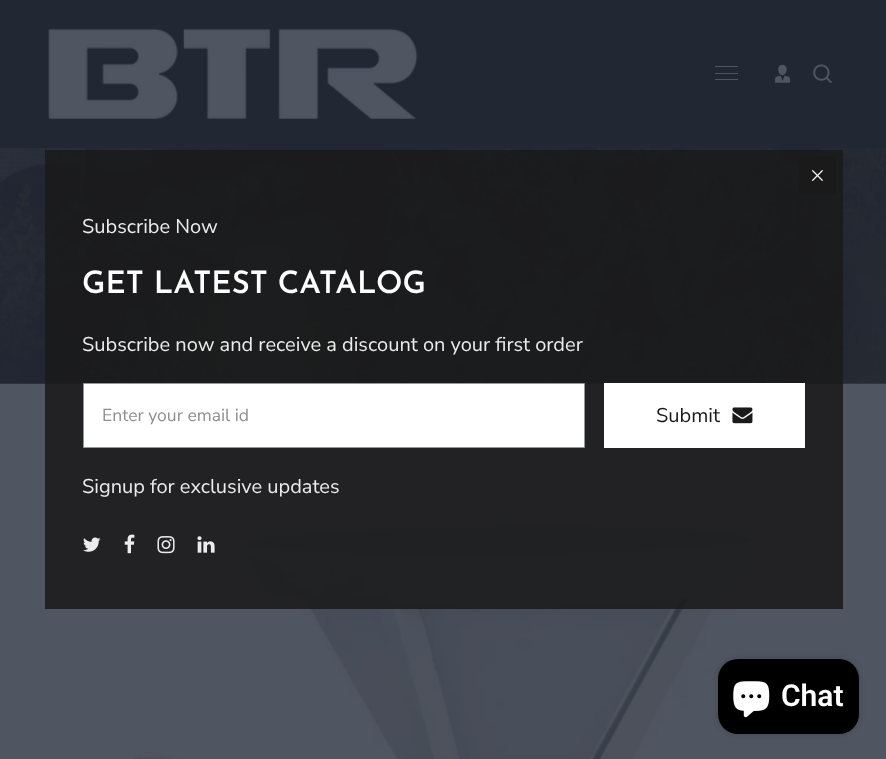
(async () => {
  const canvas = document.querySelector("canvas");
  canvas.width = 886;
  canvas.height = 759;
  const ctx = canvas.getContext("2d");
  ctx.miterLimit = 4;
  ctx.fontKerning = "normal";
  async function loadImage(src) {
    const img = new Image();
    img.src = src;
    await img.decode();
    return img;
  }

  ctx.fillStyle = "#4f5561";
  ctx.fillRect(0, 0, 886, 759);
  ctx.fillStyle = "#212733";
  ctx.fillRect(0, 0, 886, 148);
  ctx.drawImage(await loadImage("img/1.png"), 47, 28, 371, 91);
  for (const [x, y, w, h, color] of [
    [715, 73, 23, 1, "#4f5561"],
    [715, 66, 23, 1, "#4f5561"],
    [715, 79, 23, 1, "#4f5561"],
  ]) {
    ctx.fillStyle = color;
    ctx.fillRect(x, y, w, h);
  }
  ctx.drawImage(await loadImage("img/2.png"), 774, 64, 17, 19);
  ctx.drawImage(await loadImage("img/3.png"), 813, 64, 19, 20);
  ctx.drawImage(await loadImage("img/4.png"), 0, 148, 886, 236);
  ctx.drawImage(await loadImage("img/5.png"), 133, 524, 619, 235);
  ctx.fillStyle = "rgba(26, 26, 26, 0.85)";
  ctx.fillRect(45, 150, 798, 459);
  ctx.fillStyle = "#1a1a1a";
  ctx.fillRect(799, 156, 37, 38);
  ctx.drawImage(await loadImage("img/6.png"), 812, 170, 11, 11);
  ctx.fillStyle = "#ffffff";
  ctx.beginPath();
  ctx.rect(83.5, 383.5, 501, 64);
  ctx.fill();
  ctx.strokeStyle = "#92969e";
  ctx.stroke();
  ctx.fillRect(604, 383, 201, 65);
  ctx.drawImage(await loadImage("img/7.png"), 732, 407, 21, 17);
  ctx.drawImage(await loadImage("img/8.png"), 83, 537, 18, 15);
  ctx.drawImage(await loadImage("img/9.png"), 124, 534, 11, 20);
  ctx.drawImage(await loadImage("img/10.png"), 157, 536, 18, 18);
  ctx.drawImage(await loadImage("img/11.png"), 197, 536, 18, 17);
  ctx.fillStyle = "rgba(0, 0, 0, 0.15)";
  ctx.filter = "blur(3px)";
  ctx.beginPath();
  ctx.roundRect(718, 659, 141, 75, 20);
  ctx.fill();
  ctx.filter = "none";
  ctx.fillStyle = "#000000";
  ctx.beginPath();
  ctx.roundRect(718, 659, 141, 75, 20);
  ctx.fill();
  ctx.drawImage(await loadImage("img/12.png"), 733, 681, 37, 37);
  ctx.font = "20px Nunito Sans";
  ctx.fillStyle = "#ececec";
  ctx.fillText("Subscribe Now", 82, 233);
  ctx.font = "600 31px Josefin Sans";
  ctx.fillStyle = "#ffffff";
  ctx.fillText("GET LATEST CATALOG", 82, 293);
  ctx.font = "20px Nunito Sans";
  ctx.fillStyle = "#ececec";
  ctx.fillText("Subscribe now and receive a discount on your first order", 82, 351);
  ctx.font = "17.5px Nunito Sans";
  ctx.fillStyle = "#8e8e8e";
  ctx.fillText("Enter your email id", 102, 421);
  ctx.font = "20px Nunito Sans";
  ctx.fillStyle = "#1a1a1a";
  ctx.fillText("Submit", 656, 422);
  ctx.fillStyle = "#ececec";
  ctx.fillText("Signup for exclusive updates", 82, 493);
  ctx.font = "600 30px Roboto";
  ctx.fillStyle = "#ffffff";
  ctx.fillText("Chat", 781, 706);
})();
